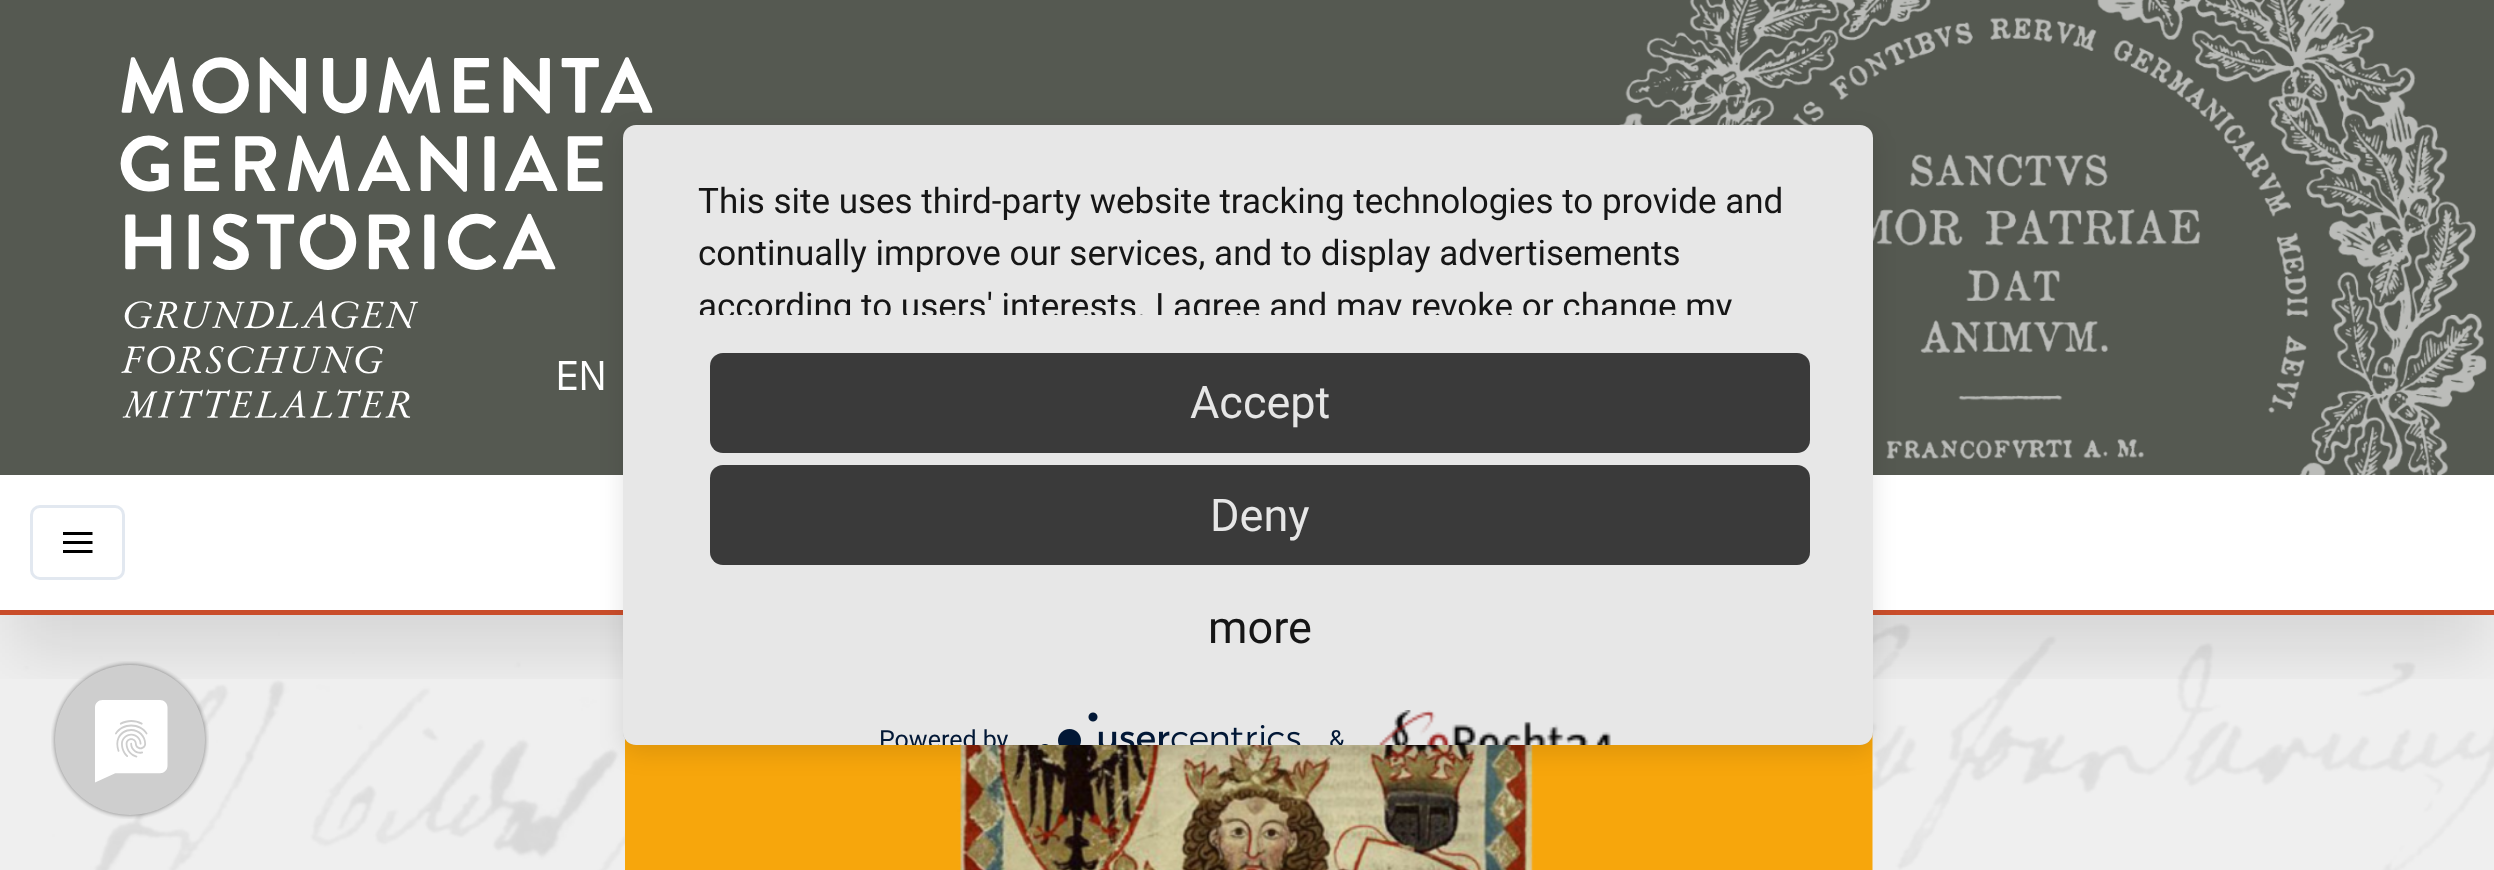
(async () => {
  const canvas = document.querySelector("canvas");
  canvas.width = 2494;
  canvas.height = 870;
  const ctx = canvas.getContext("2d");
  ctx.miterLimit = 4;
  ctx.fontKerning = "normal";
  async function loadImage(src) {
    const img = new Image();
    img.src = src;
    await img.decode();
    return img;
  }

  ctx.fillStyle = "#ffffff";
  ctx.fillRect(0, 0, 2494, 870);
  ctx.drawImage(await loadImage("img/7.png"), 0, 615, 2494, 255);
  ctx.drawImage(await loadImage("img/8.png"), 625, 732, 1248, 138);
  ctx.save();
  ctx.beginPath();
  ctx.rect(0, 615, 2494, 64);
  ctx.clip();
  ctx.fillStyle = "rgba(0, 0, 0, 0.1)";
  ctx.filter = "blur(31px)";
  ctx.beginPath();
  ctx.rect(13, 63, 2470, 590);
  ctx.fill();
  ctx.filter = "none";
  ctx.restore();
  ctx.fillStyle = "#555951";
  ctx.fillRect(0, 0, 2494, 475);
  ctx.drawImage(await loadImage("img/1.png"), 120, 57, 533, 361);
  ctx.drawImage(await loadImage("img/2.png"), 1619, 0, 868, 475);
  ctx.fillStyle = "#c94d2a";
  ctx.fillRect(0, 610, 2494, 5);
  ctx.beginPath();
  ctx.roundRect(31.5, 506.5, 92, 72, 8.5);
  ctx.strokeStyle = "#e2e8f0";
  ctx.lineWidth = 3;
  ctx.stroke();
  ctx.drawImage(await loadImage("img/3.png"), 63, 532, 30, 21);
  ctx.drawImage(await loadImage("img/4.png"), 51, 661, 158, 158);
  ctx.fillStyle = "rgba(0, 0, 0, 0.1)";
  ctx.filter = "blur(12.5px)";
  ctx.beginPath();
  ctx.roundRect(623, 133, 1250, 620, 13);
  ctx.fill();
  ctx.filter = "none";
  ctx.save();
  ctx.beginPath();
  ctx.roundRect(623, 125, 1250, 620, 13);
  ctx.clip();
  ctx.fillStyle = "rgba(0, 0, 0, 0.3)";
  ctx.filter = "blur(45px)";
  ctx.beginPath();
  ctx.rect(623, 140, 1250, 695);
  ctx.fill();
  ctx.filter = "none";
  ctx.restore();
  ctx.fillStyle = "#e7e7e7";
  ctx.beginPath();
  ctx.roundRect(623, 125, 1250, 620, 13);
  ctx.fill();
  ctx.fillStyle = "#3a3a3a";
  ctx.beginPath();
  ctx.roundRect(710, 353, 1100, 100, 13);
  ctx.fill();
  ctx.beginPath();
  ctx.roundRect(710, 465, 1100, 100, 13);
  ctx.fill();
  ctx.drawImage(await loadImage("img/5.png"), 1041, 712, 260, 33);
  ctx.drawImage(await loadImage("img/6.png"), 1379, 710, 232, 35);
  ctx.font = "bold 40px IBM Plex Sans";
  ctx.fillStyle = "#ffffff";
  ctx.fillText("EN", 555, 390);
  ctx.font = "35px Roboto";
  ctx.fillStyle = "#161616";
  ctx.fillText("This site uses third-party website tracking technologies to provide and", 698, 213);
  ctx.fillText("continually improve our services, and to display advertisements", 698, 265);
  ctx.save();
  ctx.beginPath();
  ctx.rect(698, 175, 1100, 140);
  ctx.clip();
  ctx.fillText("according to users' interests. I agree and may revoke or change my", 698, 318);
  ctx.restore();
  ctx.font = "45px Roboto";
  ctx.fillStyle = "#e6e6e6";
  ctx.fillText("Accept", 1190, 418);
  ctx.fillText("Deny", 1210, 531);
  ctx.fillStyle = "#161616";
  ctx.fillText("more", 1208, 643);
  ctx.save();
  ctx.beginPath();
  ctx.roundRect(623, 125, 1250, 620, 13);
  ctx.clip();
  ctx.font = "25px Roboto";
  ctx.fillStyle = "#021836";
  ctx.fillText("Powered by", 879, 748);
  ctx.fillText("&", 1329, 748);
  ctx.restore();
})();
